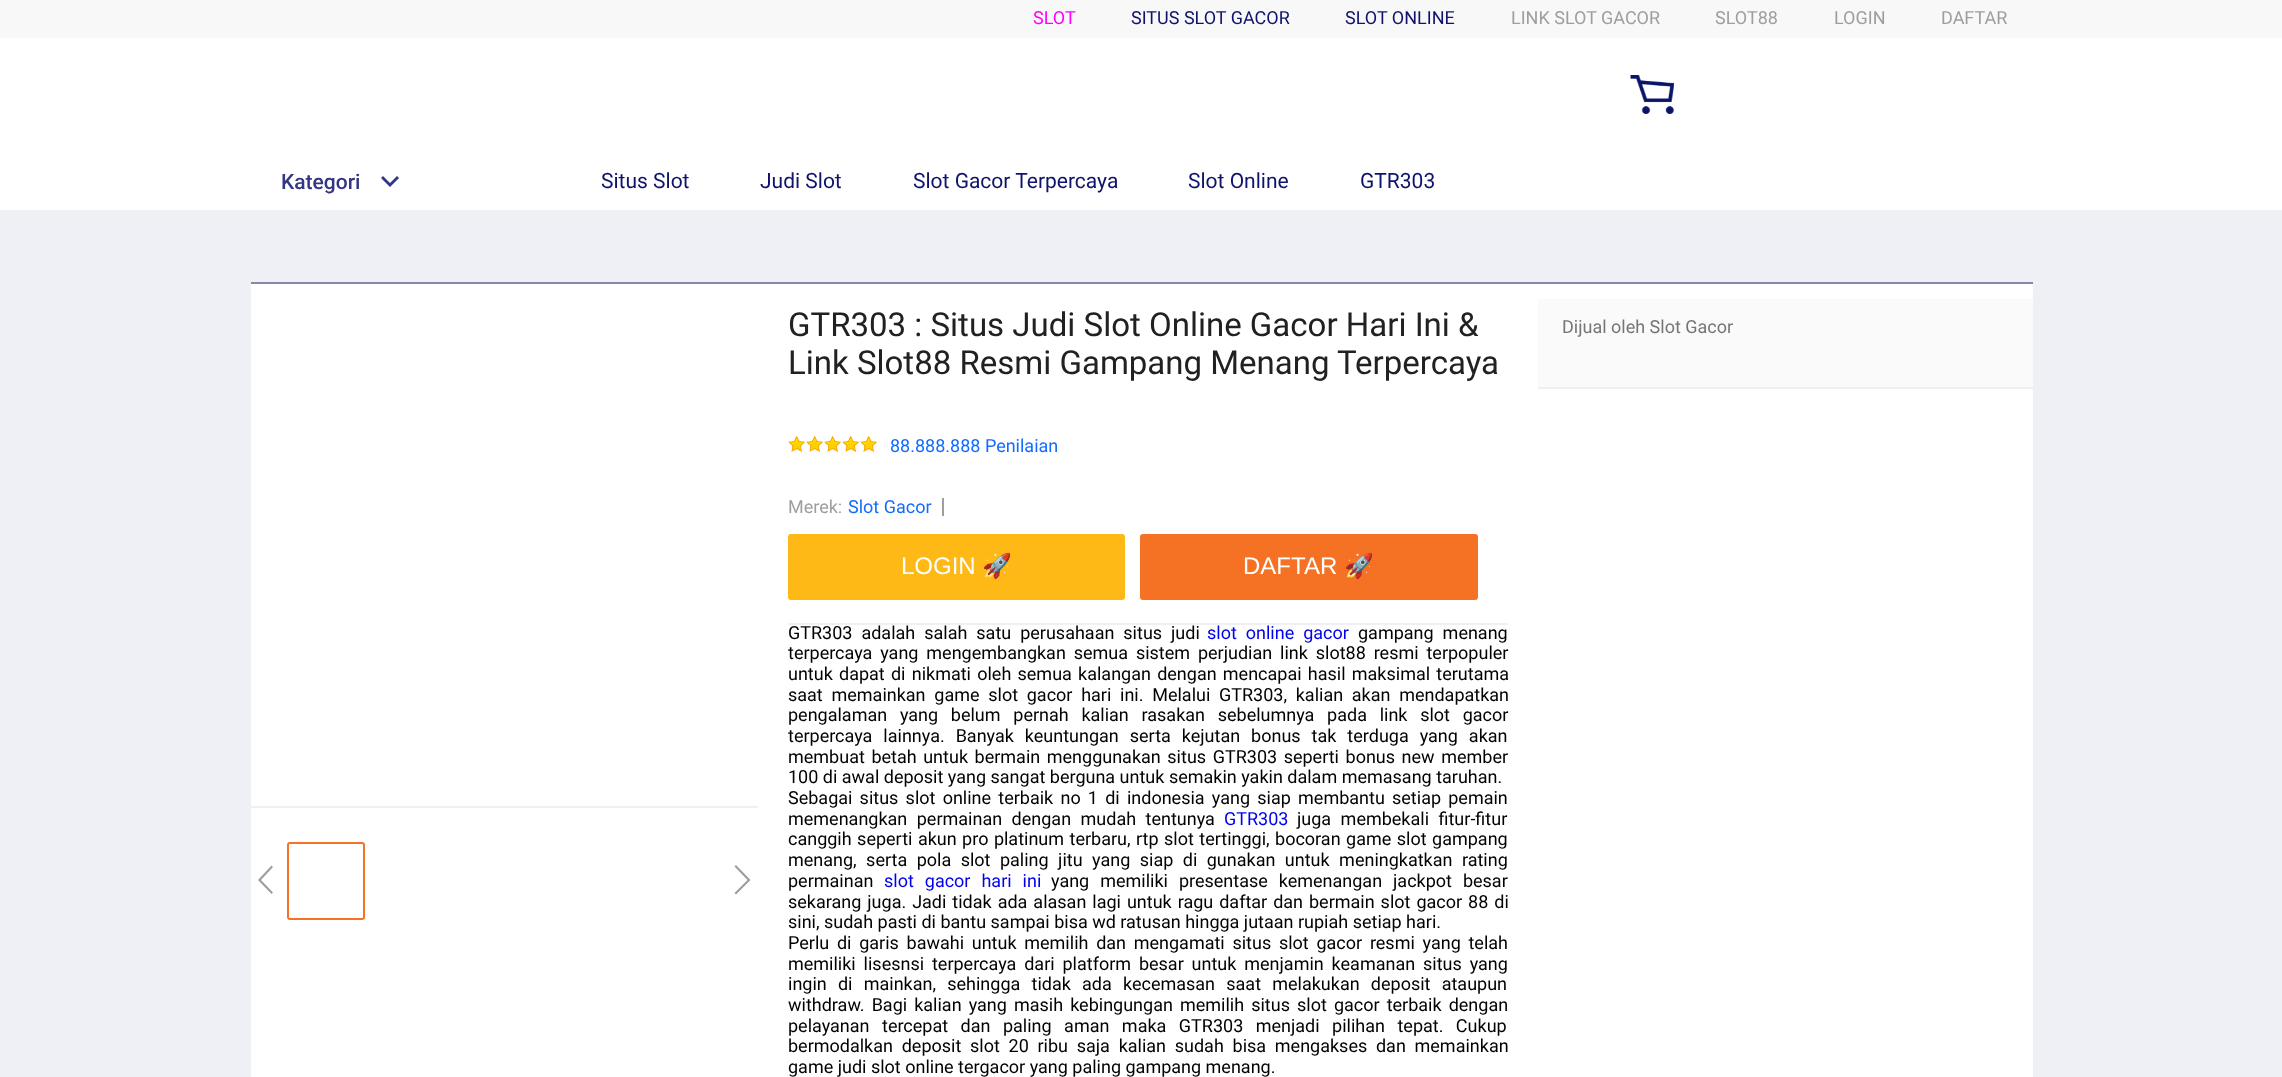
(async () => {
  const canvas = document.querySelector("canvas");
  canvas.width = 2282;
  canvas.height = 1077;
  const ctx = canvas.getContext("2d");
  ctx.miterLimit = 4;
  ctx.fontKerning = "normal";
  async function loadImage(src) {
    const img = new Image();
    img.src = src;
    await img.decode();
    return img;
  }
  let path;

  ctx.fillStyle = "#eff0f5";
  ctx.fillRect(0, 0, 2282, 1077);
  ctx.fillStyle = "#ffffff";
  ctx.fillRect(0, 38, 2282, 172);
  ctx.fillStyle = "#f8f8f8";
  ctx.fillRect(0, 0, 2282, 38);
  ctx.drawImage(await loadImage("img/1.png"), 1630, 75, 44, 39);
  ctx.fillStyle = "#333683";
  path = new Path2D("M397 176L399 178L390 187L381 178L383 176L390 183Z");
  ctx.fill(path);
  for (const [x, y, w, h, color] of [
    [251, 282, 1782, 2, "#8188ad"],
    [251, 284, 1782, 793, "#ffffff"],
    [251, 806, 507, 2, "#eff0f5"],
  ]) {
    ctx.fillStyle = color;
    ctx.fillRect(x, y, w, h);
  }
  ctx.fillStyle = "#9e9e9e";
  path = new Path2D("M273 892.5L261 880L273 867L271.5 865.5L258 880L271.5 894Z");
  ctx.fill(path);
  ctx.beginPath();
  ctx.roundRect(288, 843, 76, 76, 2);
  ctx.strokeStyle = "#f57224";
  ctx.lineWidth = 2;
  ctx.stroke();
  path = new Path2D("M736 894.5L734.5 893L747.5 880L734.5 866.5L736 865L750.5 880Z");
  ctx.fill(path);
  ctx.drawImage(await loadImage("img/2.png"), 788, 435, 17, 17);
  ctx.drawImage(await loadImage("img/2.png"), 806, 435, 17, 17);
  ctx.drawImage(await loadImage("img/2.png"), 824, 435, 17, 17);
  ctx.drawImage(await loadImage("img/2.png"), 842, 435, 17, 17);
  ctx.drawImage(await loadImage("img/2.png"), 860, 435, 17, 17);
  ctx.fillStyle = "#eff0f5";
  ctx.fillRect(788, 623, 720, 2);
  ctx.fillStyle = "#9e9e9e";
  ctx.fillRect(942, 498, 2, 18);
  ctx.fillStyle = "#ffb916";
  ctx.beginPath();
  ctx.roundRect(788, 534, 337, 66, 3);
  ctx.fill();
  ctx.fillStyle = "#f57224";
  ctx.beginPath();
  ctx.roundRect(1140, 534, 338, 66, 3);
  ctx.fill();
  ctx.fillStyle = "#fafafa";
  ctx.fillRect(1538, 299, 495, 88);
  ctx.fillStyle = "#eff0f5";
  ctx.fillRect(1538, 387, 495, 2);
  ctx.font = "18px Roboto";
  ctx.fillStyle = "#ff00ff";
  ctx.fillText("SLOT", 1033, 24);
  ctx.fillStyle = "#0f136d";
  ctx.fillText("SITUS SLOT GACOR", 1131, 24);
  ctx.fillText("SLOT ONLINE", 1345, 24);
  ctx.fillStyle = "#9e9e9e";
  for (const [text, x, y] of [
    ["LINK SLOT GACOR", 1511, 24],
    ["SLOT88", 1715, 24],
    ["LOGIN", 1834, 24],
    ["DAFTAR", 1941, 24],
  ]) {
    ctx.fillText(text, x, y);
  }
  ctx.font = "500 21px Roboto";
  ctx.fillStyle = "#333683";
  ctx.fillText("Kategori", 281, 189);
  ctx.font = "21px Roboto";
  ctx.fillStyle = "#0f136d";
  for (const [text, x, y] of [
    ["Situs Slot", 601, 188],
    ["Judi Slot", 760, 188],
    ["Slot Gacor Terpercaya", 913, 188],
    ["Slot Online", 1188, 188],
    ["GTR303", 1360, 188],
  ]) {
    ctx.fillText(text, x, y);
  }
  ctx.font = "33px Roboto";
  ctx.fillStyle = "#212121";
  ctx.fillText("GTR303 : Situs Judi Slot Online Gacor Hari Ini &", 788, 336);
  ctx.fillText("Link Slot88 Resmi Gampang Menang Terpercaya", 788, 374);
  ctx.font = "18px Roboto";
  ctx.fillStyle = "#136cff";
  ctx.fillText("88.888.888 Penilaian", 890, 452);
  ctx.fillStyle = "#9e9e9e";
  ctx.fillText("Merek:", 788, 513);
  ctx.fillStyle = "#136cff";
  ctx.fillText("Slot Gacor", 848, 513);
  ctx.font = "24px Liberation Sans";
  ctx.fillStyle = "#ffffff";
  ctx.fillText("LOGIN", 901, 574);
  ctx.font = "24px Noto Color Emoji";
  ctx.fillText("🚀", 982, 574);
  ctx.font = "24px Liberation Sans";
  ctx.fillText("DAFTAR", 1243, 574);
  ctx.font = "24px Noto Color Emoji";
  ctx.fillText("🚀", 1344, 574);
  ctx.wordSpacing = "4.5px";
  ctx.font = "18px Roboto";
  ctx.fillStyle = "#000000";
  ctx.fillText("GTR303 adalah salah satu perusahaan situs judi", 788, 639);
  ctx.fillStyle = "#0000ee";
  ctx.fillText("slot online gacor", 1207, 639);
  ctx.fillStyle = "#000000";
  ctx.fillText("gampang menang", 1358, 639);
  ctx.wordSpacing = "3.4px";
  ctx.fillText("terpercaya yang mengembangkan semua sistem perjudian link slot88 resmi terpopuler", 788, 659);
  ctx.wordSpacing = "1.75px";
  ctx.fillText("untuk dapat di nikmati oleh semua kalangan dengan mencapai hasil maksimal terutama", 788, 680);
  ctx.wordSpacing = "4.25px";
  ctx.fillText("saat memainkan game slot gacor hari ini. Melalui GTR303, kalian akan mendapatkan", 788, 701);
  ctx.wordSpacing = "8.25px";
  ctx.fillText("pengalaman yang belum pernah kalian rasakan sebelumnya pada link slot gacor", 788, 721);
  ctx.wordSpacing = "6.5px";
  ctx.fillText("terpercaya lainnya. Banyak keuntungan serta kejutan bonus tak terduga yang akan", 788, 742);
  ctx.wordSpacing = "2.1px";
  ctx.fillText("membuat betah untuk bermain menggunakan situs GTR303 seperti bonus new member", 788, 763);
  ctx.wordSpacing = "0px";
  ctx.fillText("100 di awal deposit yang sangat berguna untuk semakin yakin dalam memasang taruhan.", 788, 783);
  ctx.wordSpacing = "2.75px";
  ctx.fillText("Sebagai situs slot online terbaik no 1 di indonesia yang siap membantu setiap pemain", 788, 804);
  ctx.wordSpacing = "5px";
  ctx.fillText("memenangkan permainan dengan mudah tentunya", 788, 825);
  ctx.wordSpacing = "0px";
  ctx.fillStyle = "#0000ee";
  ctx.fillText("GTR303", 1224, 825);
  ctx.wordSpacing = "5px";
  ctx.fillStyle = "#000000";
  ctx.fillText("juga membekali fitur-fitur", 1297, 825);
  ctx.wordSpacing = "1px";
  ctx.fillText("canggih seperti akun pro platinum terbaru, rtp slot tertinggi, bocoran game slot gampang", 788, 845);
  ctx.wordSpacing = "5px";
  ctx.fillText("menang, serta pola slot paling jitu yang siap di gunakan untuk meningkatkan rating", 788, 866);
  ctx.wordSpacing = "0px";
  ctx.fillText("permainan", 788, 887);
  ctx.wordSpacing = "6.5px";
  ctx.fillStyle = "#0000ee";
  ctx.fillText("slot gacor hari ini", 884, 887);
  ctx.fillStyle = "#000000";
  ctx.fillText("yang memiliki presentase kemenangan jackpot besar", 1051, 887);
  ctx.wordSpacing = "1.5px";
  ctx.fillText("sekarang juga. Jadi tidak ada alasan lagi untuk ragu daftar dan bermain slot gacor 88 di", 788, 908);
  ctx.wordSpacing = "0px";
  ctx.fillText("sini, sudah pasti di bantu sampai bisa wd ratusan hingga jutaan rupiah setiap hari.", 788, 928);
  ctx.wordSpacing = "3.25px";
  ctx.fillText("Perlu di garis bawahi untuk memilih dan mengamati situs slot gacor resmi yang telah", 788, 949);
  ctx.wordSpacing = "3.4px";
  ctx.fillText("memiliki lisesnsi terpercaya dari platform besar untuk menjamin keamanan situs yang", 788, 970);
  ctx.wordSpacing = "6.75px";
  ctx.fillText("ingin di mainkan, sehingga tidak ada kecemasan saat melakukan deposit ataupun", 788, 990);
  ctx.wordSpacing = "2.6px";
  ctx.fillText("withdraw. Bagi kalian yang masih kebingungan memilih situs slot gacor terbaik dengan", 788, 1011);
  ctx.wordSpacing = "8px";
  ctx.fillText("pelayanan tercepat dan paling aman maka GTR303 menjadi pilihan tepat. Cukup", 788, 1032);
  ctx.wordSpacing = "4.25px";
  ctx.fillText("bermodalkan deposit slot 20 ribu saja kalian sudah bisa mengakses dan memainkan", 788, 1052);
  ctx.wordSpacing = "0px";
  ctx.fillText("game judi slot online tergacor yang paling gampang menang.", 788, 1073);
  ctx.fillStyle = "#757575";
  ctx.fillText("Dijual oleh Slot Gacor", 1562, 333);
})();
